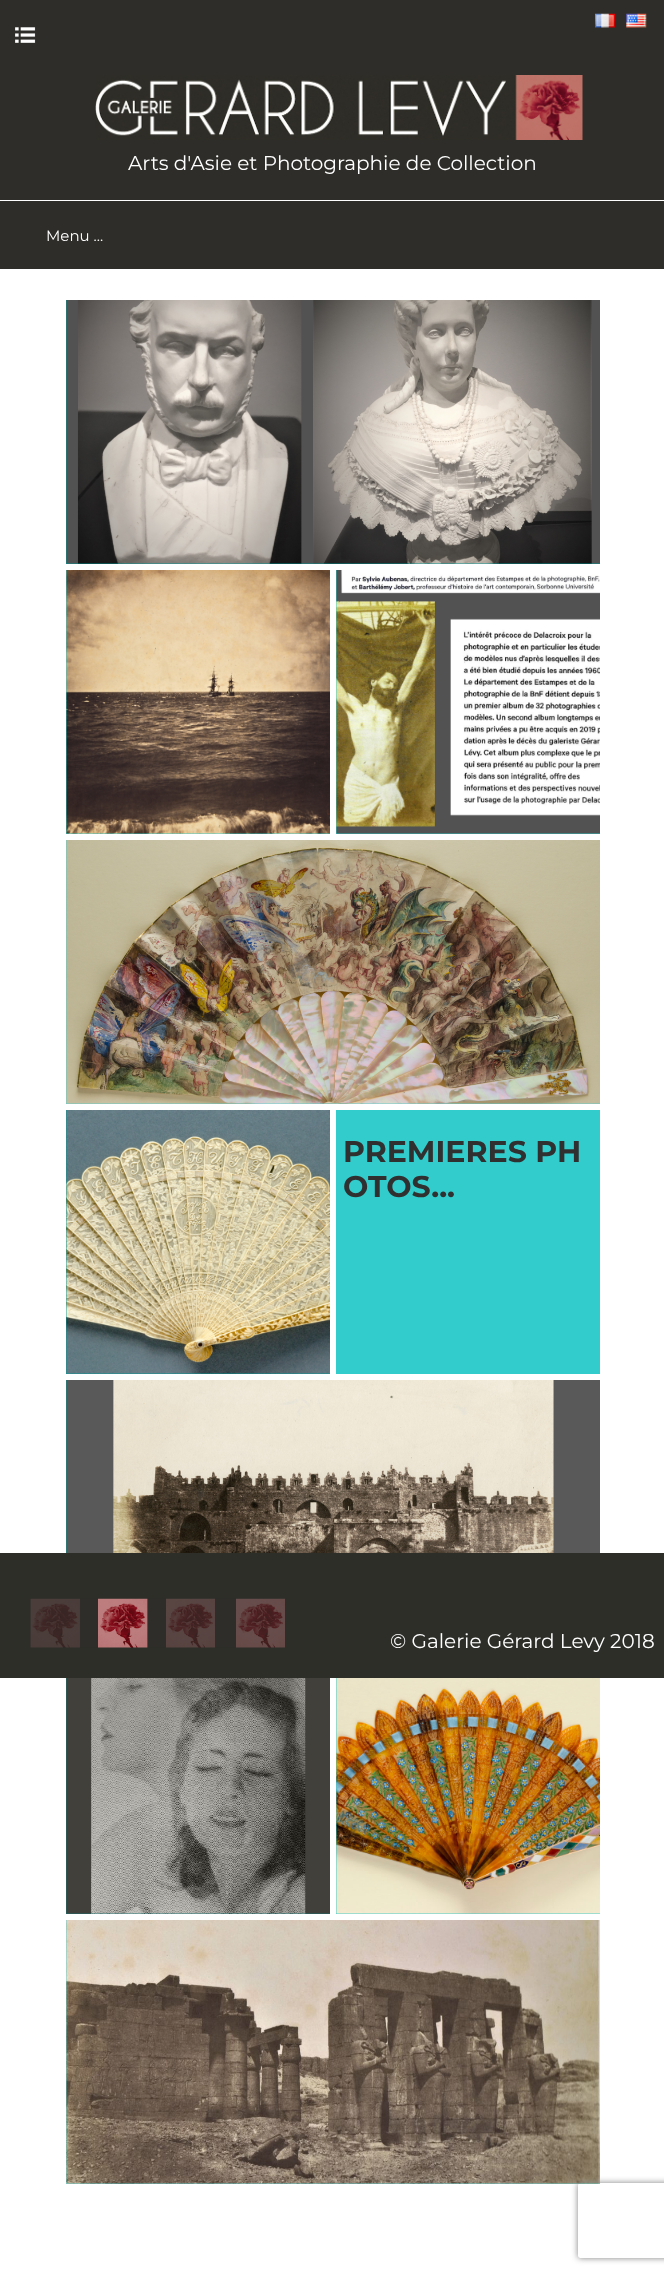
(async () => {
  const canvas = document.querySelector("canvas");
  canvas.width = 664;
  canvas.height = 2274;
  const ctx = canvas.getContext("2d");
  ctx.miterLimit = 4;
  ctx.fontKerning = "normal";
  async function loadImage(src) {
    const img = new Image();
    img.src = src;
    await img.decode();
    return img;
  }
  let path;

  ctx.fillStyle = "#ffffff";
  ctx.fillRect(0, 0, 664, 2274);
  ctx.fillStyle = "#2e2d29";
  ctx.fillRect(0, 0, 664, 269);
  ctx.drawImage(await loadImage("img/1.png"), 595, 13, 20, 15);
  ctx.drawImage(await loadImage("img/2.png"), 626, 13, 21, 15);
  ctx.drawImage(await loadImage("img/3.png"), 95, 75, 488, 65);
  ctx.fillStyle = "#ffffff";
  ctx.fillRect(0, 200, 664, 1);
  ctx.drawImage(await loadImage("img/4.png"), 15, 27, 21, 16);
  ctx.fillStyle = "#009999";
  ctx.fillRect(66, 300, 534, 264);
  ctx.drawImage(await loadImage("img/5.png"), 66, 300, 534, 264);
  ctx.fillStyle = "#33cccc";
  ctx.fillRect(66, 570, 264, 264);
  ctx.drawImage(await loadImage("img/6.png"), 66, 570, 264, 264);
  ctx.fillRect(336, 570, 264, 264);
  ctx.drawImage(await loadImage("img/7.png"), 336, 570, 264, 264);
  ctx.fillStyle = "#5ccccc";
  ctx.fillRect(66, 840, 534, 264);
  ctx.drawImage(await loadImage("img/8.png"), 66, 840, 534, 264);
  ctx.fillStyle = "#009999";
  ctx.fillRect(66, 1110, 264, 264);
  ctx.drawImage(await loadImage("img/9.png"), 66, 1110, 264, 264);
  ctx.fillStyle = "#33cccc";
  ctx.fillRect(336, 1110, 264, 264);
  ctx.fillStyle = "#009999";
  ctx.fillRect(66, 1380, 1, 173);
  ctx.drawImage(await loadImage("img/10.png"), 66, 1380, 534, 173);
  ctx.fillStyle = "#1d7373";
  ctx.fillRect(66, 1678, 264, 236);
  ctx.drawImage(await loadImage("img/11.png"), 66, 1678, 264, 236);
  ctx.fillStyle = "#33cccc";
  ctx.fillRect(336, 1678, 264, 236);
  ctx.drawImage(await loadImage("img/12.png"), 336, 1678, 264, 236);
  ctx.fillStyle = "#5ccccc";
  ctx.fillRect(66, 1920, 534, 264);
  ctx.drawImage(await loadImage("img/13.png"), 66, 1920, 534, 264);
  ctx.fillStyle = "#2d2e28";
  ctx.fillRect(0, 1553, 664, 125);
  ctx.drawImage(await loadImage("img/14.png"), 30, 1598, 255, 50);
  ctx.save();
  path = new Path2D("M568 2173H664V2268H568ZM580.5 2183H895.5C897 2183 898 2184 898 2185.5V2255.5C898 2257 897 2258 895.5 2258H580.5C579 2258 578 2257 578 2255.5V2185.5C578 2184 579 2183 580.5 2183Z");
  ctx.clip(path, "evenodd");
  ctx.fillStyle = "#808080";
  ctx.filter = "blur(3px)";
  ctx.beginPath();
  ctx.roundRect(578, 2183, 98, 75, 2.5);
  ctx.fill();
  ctx.filter = "none";
  ctx.restore();
  ctx.font = "20px Montserrat";
  ctx.fillStyle = "#ffffff";
  ctx.fillText("Arts d'Asie et Photographie de Collection", 128, 170);
  ctx.font = "15px Montserrat";
  ctx.fillText("Menu ...", 46, 241);
  ctx.font = "bold 30px Montserrat";
  ctx.fillStyle = "#303030";
  ctx.fillText("PREMIERES PH", 343, 1162);
  ctx.fillText("OTOS...", 343, 1197);
  ctx.font = "20px Montserrat";
  ctx.fillStyle = "#ffffff";
  ctx.fillText("© Galerie Gérard Levy 2018", 390, 1648);
})();
